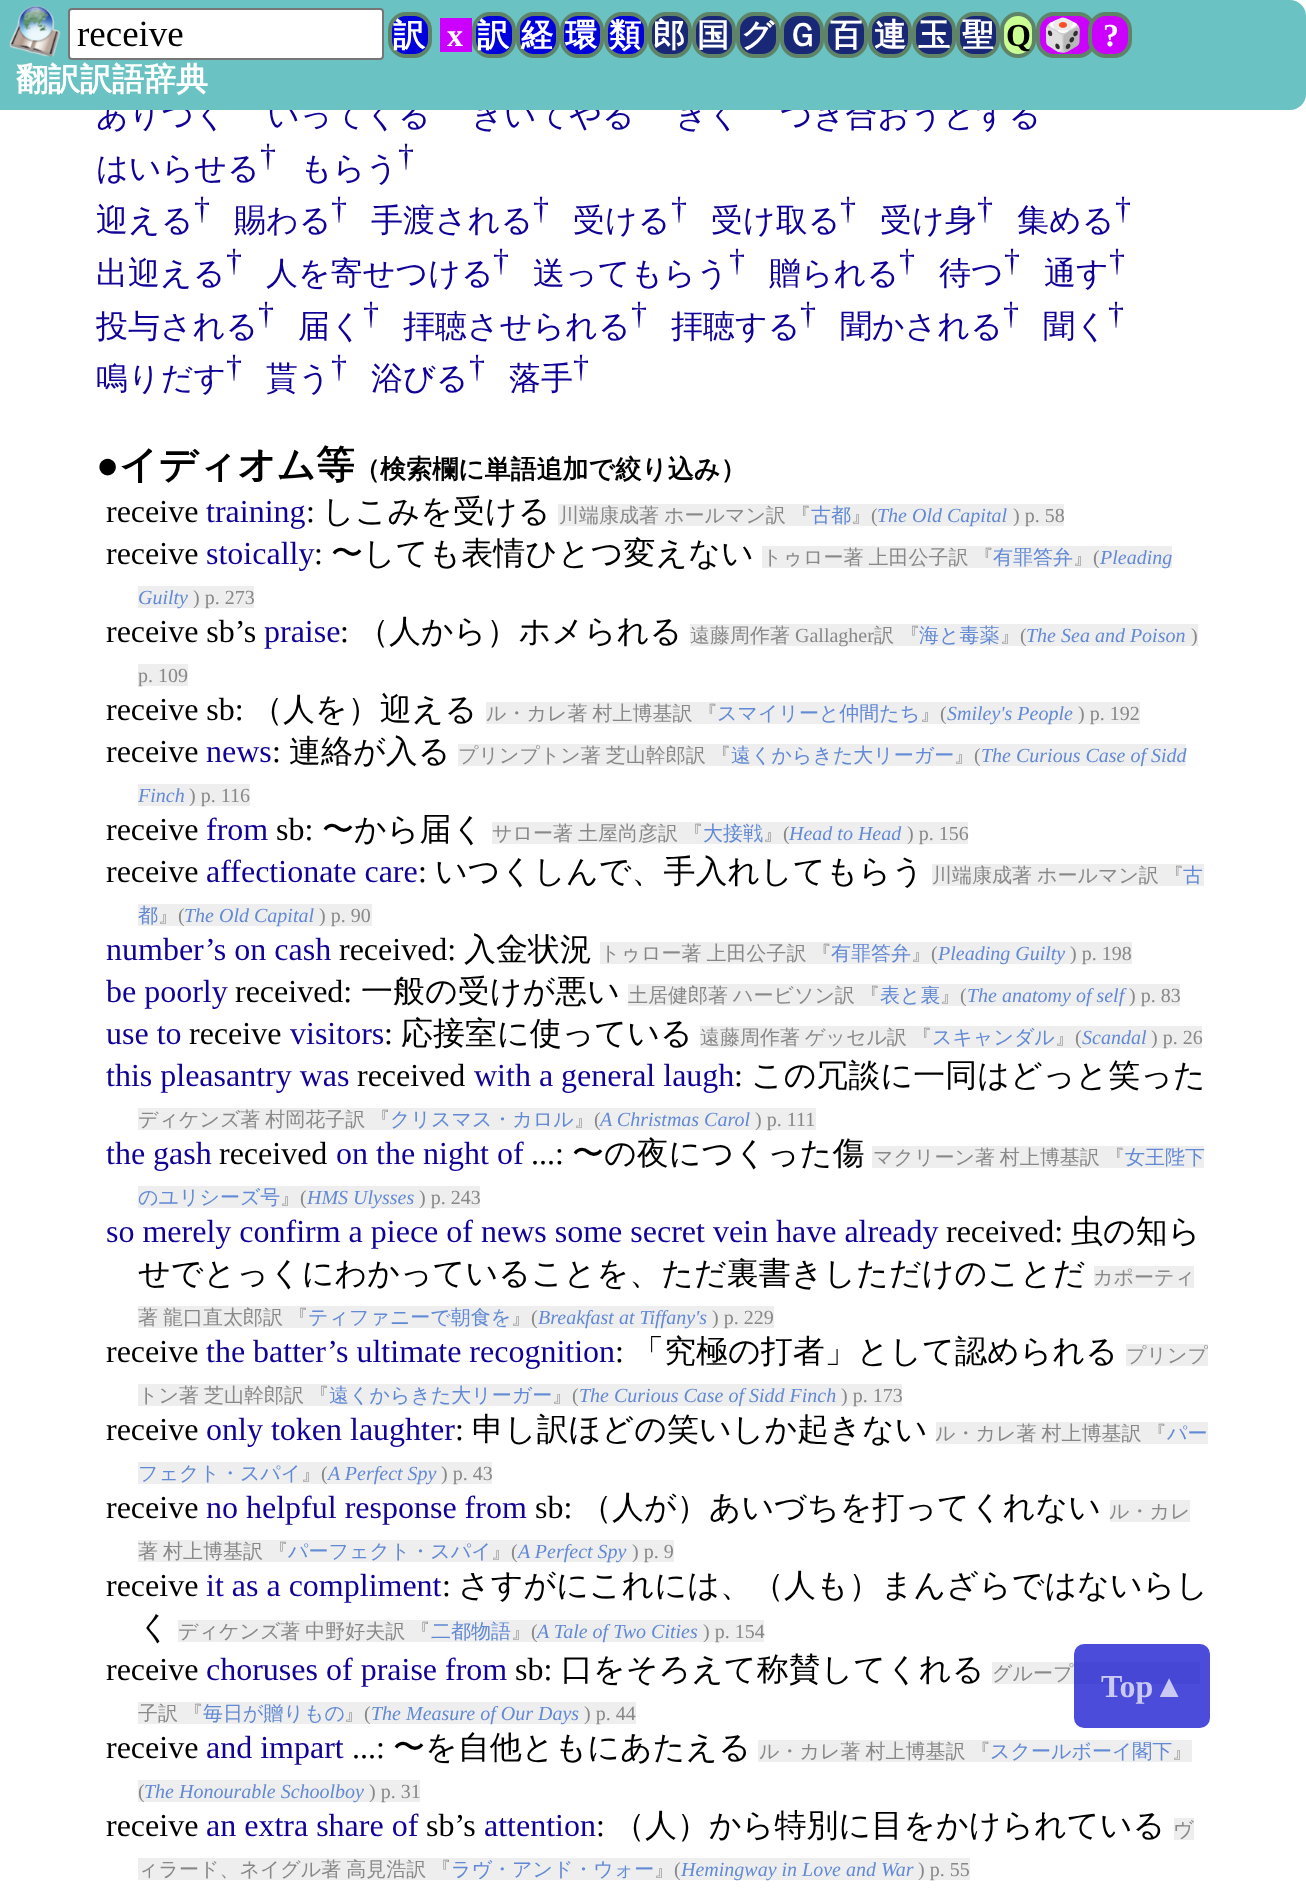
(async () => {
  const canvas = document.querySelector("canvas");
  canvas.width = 1306;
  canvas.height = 1888;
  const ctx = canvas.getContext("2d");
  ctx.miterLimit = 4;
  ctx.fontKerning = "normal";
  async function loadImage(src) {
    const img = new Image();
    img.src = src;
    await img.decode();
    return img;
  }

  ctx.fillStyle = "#ffffff";
  ctx.fillRect(0, 0, 1306, 1888);
  for (const [x, y, w, h, color] of [
    [558, 504, 506, 22, "#eeeeee"],
    [762, 546, 410, 22, "#eeeeee"],
    [138, 586, 116, 22, "#eeeeee"],
    [690, 624, 508, 22, "#eeeeee"],
    [138, 664, 50, 22, "#eeeeee"],
    [486, 702, 654, 22, "#eeeeee"],
    [458, 744, 728, 22, "#eeeeee"],
    [138, 784, 112, 22, "#eeeeee"],
    [492, 822, 476, 22, "#eeeeee"],
    [932, 864, 272, 22, "#eeeeee"],
    [138, 904, 234, 22, "#eeeeee"],
    [600, 942, 532, 22, "#eeeeee"],
    [628, 984, 552, 22, "#eeeeee"],
    [700, 1026, 502, 22, "#eeeeee"],
    [138, 1108, 678, 22, "#eeeeee"],
    [872, 1146, 332, 22, "#eeeeee"],
    [138, 1186, 342, 22, "#eeeeee"],
    [1094, 1266, 100, 22, "#eeeeee"],
    [138, 1306, 636, 22, "#eeeeee"],
    [1126, 1344, 82, 22, "#eeeeee"],
    [138, 1384, 764, 22, "#eeeeee"],
    [936, 1422, 272, 22, "#eeeeee"],
    [138, 1462, 354, 22, "#eeeeee"],
    [1110, 1500, 80, 22, "#eeeeee"],
    [138, 1540, 536, 22, "#eeeeee"],
    [178, 1620, 586, 22, "#eeeeee"],
    [992, 1662, 208, 22, "#eeeeee"],
    [138, 1702, 498, 22, "#eeeeee"],
    [758, 1740, 434, 22, "#eeeeee"],
    [138, 1780, 282, 22, "#eeeeee"],
    [1174, 1818, 20, 22, "#eeeeee"],
    [138, 1858, 832, 22, "#eeeeee"],
  ]) {
    ctx.fillStyle = color;
    ctx.fillRect(x, y, w, h);
  }
  ctx.fillStyle = "rgba(0, 0, 204, 0.7)";
  ctx.beginPath();
  ctx.roundRect(1074, 1644, 136, 84, 10);
  ctx.fill();
  ctx.font = "500 32px WenQuanYi Zen Hei";
  ctx.fillStyle = "#100296";
  for (const [text, x, y] of [
    ["ありつく", 96, 126],
    ["いってくる", 267, 126],
    ["きいてやる", 471, 126],
    ["きく", 675, 126],
    ["つき合おうとする", 780, 126],
  ]) {
    ctx.fillText(text, x, y);
  }
  ctx.fillStyle = "#6ac2c3";
  ctx.beginPath();
  ctx.roundRect(0, 0, 1306, 110, [0, 16, 16, 0]);
  ctx.fill();
  ctx.font = "bold 32px WenQuanYi Zen Hei";
  ctx.fillStyle = "#ffffff";
  ctx.fillText("翻訳訳語辞典", 16, 90);
  ctx.fillStyle = "#cc00ff";
  ctx.beginPath();
  ctx.roundRect(1038, 14, 56, 42, 16);
  ctx.fill();
  ctx.strokeStyle = "#5e8367";
  ctx.lineWidth = 4;
  ctx.stroke();
  ctx.beginPath();
  ctx.roundRect(1090, 14, 40, 42, 16);
  ctx.fill();
  ctx.stroke();
  ctx.font = "bold 32px Liberation Serif";
  ctx.fillStyle = "#ffffff";
  ctx.fillText("?", 1103, 46);
  ctx.font = "bold 32px Noto Color Emoji";
  ctx.fillText("🎲", 1043, 46);
  ctx.fillStyle = "#c9ff93";
  ctx.beginPath();
  ctx.roundRect(1002, 14, 32, 42, 16);
  ctx.fill();
  ctx.stroke();
  ctx.font = "bold 32px Liberation Serif";
  ctx.fillStyle = "#000000";
  ctx.fillText("Q", 1006, 46);
  ctx.fillStyle = "#192777";
  ctx.beginPath();
  ctx.roundRect(958, 14, 40, 42, 16);
  ctx.fill();
  ctx.stroke();
  ctx.font = "bold 32px WenQuanYi Zen Hei";
  ctx.fillStyle = "#ffffff";
  ctx.fillText("聖", 962, 46);
  ctx.fillStyle = "#192777";
  ctx.beginPath();
  ctx.roundRect(914, 14, 40, 42, 16);
  ctx.fill();
  ctx.stroke();
  ctx.fillStyle = "#ffffff";
  ctx.fillText("玉", 918, 46);
  ctx.fillStyle = "#192777";
  ctx.beginPath();
  ctx.roundRect(870, 14, 40, 42, 16);
  ctx.fill();
  ctx.stroke();
  ctx.fillStyle = "#ffffff";
  ctx.fillText("連", 874, 46);
  ctx.fillStyle = "#192777";
  ctx.beginPath();
  ctx.roundRect(826, 14, 40, 42, 16);
  ctx.fill();
  ctx.stroke();
  ctx.fillStyle = "#ffffff";
  ctx.fillText("百", 830, 46);
  ctx.fillStyle = "#192777";
  ctx.beginPath();
  ctx.roundRect(782, 14, 40, 42, 16);
  ctx.fill();
  ctx.stroke();
  ctx.fillStyle = "#ffffff";
  ctx.fillText("Ｇ", 786, 46);
  ctx.fillStyle = "#192777";
  ctx.beginPath();
  ctx.roundRect(738, 14, 40, 42, 16);
  ctx.fill();
  ctx.stroke();
  ctx.fillStyle = "#ffffff";
  ctx.fillText("グ", 741, 46);
  ctx.fillStyle = "#192777";
  ctx.beginPath();
  ctx.roundRect(694, 14, 40, 42, 16);
  ctx.fill();
  ctx.stroke();
  ctx.fillStyle = "#ffffff";
  ctx.fillText("国", 697, 46);
  ctx.fillStyle = "#192777";
  ctx.beginPath();
  ctx.roundRect(650, 14, 40, 42, 16);
  ctx.fill();
  ctx.stroke();
  ctx.fillStyle = "#ffffff";
  ctx.fillText("郎", 653, 46);
  ctx.fillStyle = "#0000dd";
  ctx.beginPath();
  ctx.roundRect(606, 14, 40, 42, 16);
  ctx.fill();
  ctx.stroke();
  ctx.fillStyle = "#ffffff";
  ctx.fillText("類", 609, 46);
  ctx.fillStyle = "#0000dd";
  ctx.beginPath();
  ctx.roundRect(562, 14, 40, 42, 16);
  ctx.fill();
  ctx.stroke();
  ctx.fillStyle = "#ffffff";
  ctx.fillText("環", 565, 46);
  ctx.fillStyle = "#0000dd";
  ctx.beginPath();
  ctx.roundRect(518, 14, 40, 42, 16);
  ctx.fill();
  ctx.stroke();
  ctx.fillStyle = "#ffffff";
  ctx.fillText("経", 521, 46);
  ctx.fillStyle = "#0000dd";
  ctx.beginPath();
  ctx.roundRect(474, 14, 40, 42, 16);
  ctx.fill();
  ctx.stroke();
  ctx.fillStyle = "#ffffff";
  ctx.fillText("訳", 477, 46);
  ctx.fillStyle = "#cc00ff";
  ctx.fillRect(440, 18, 32, 34);
  ctx.font = "bold 32px Liberation Serif";
  ctx.fillStyle = "#ffffff";
  ctx.fillText("x", 447, 46);
  ctx.fillStyle = "#0000dd";
  ctx.beginPath();
  ctx.roundRect(390, 14, 40, 42, 16);
  ctx.fill();
  ctx.stroke();
  ctx.font = "bold 32px WenQuanYi Zen Hei";
  ctx.fillStyle = "#ffffff";
  ctx.fillText("訳", 393, 46);
  ctx.beginPath();
  ctx.roundRect(69, 9, 314, 50, 3);
  ctx.fill();
  ctx.strokeStyle = "#767676";
  ctx.lineWidth = 2;
  ctx.stroke();
  ctx.font = "37px Liberation Serif";
  ctx.fillStyle = "#000000";
  ctx.fillText("receive", 77, 46);
  ctx.drawImage(await loadImage("img/1.png"), 9, 5, 52, 52);
  ctx.font = "500 32px WenQuanYi Zen Hei";
  ctx.fillStyle = "#100296";
  ctx.fillText("はいらせる", 96, 179);
  ctx.font = "32px Liberation Serif";
  ctx.fillText("†", 260, 166);
  ctx.font = "500 32px WenQuanYi Zen Hei";
  ctx.fillText("もらう", 300, 179);
  ctx.font = "32px Liberation Serif";
  ctx.fillText("†", 398, 166);
  ctx.font = "500 32px WenQuanYi Zen Hei";
  ctx.fillText("迎える", 96, 231);
  ctx.font = "32px Liberation Serif";
  ctx.fillText("†", 194, 219);
  ctx.font = "500 32px WenQuanYi Zen Hei";
  ctx.fillText("賜わる", 234, 231);
  ctx.font = "32px Liberation Serif";
  ctx.fillText("†", 331, 219);
  ctx.font = "500 32px WenQuanYi Zen Hei";
  ctx.fillText("手渡される", 371, 231);
  ctx.font = "32px Liberation Serif";
  ctx.fillText("†", 533, 219);
  ctx.font = "500 32px WenQuanYi Zen Hei";
  ctx.fillText("受ける", 573, 231);
  ctx.font = "32px Liberation Serif";
  ctx.fillText("†", 671, 219);
  ctx.font = "500 32px WenQuanYi Zen Hei";
  ctx.fillText("受け取る", 711, 231);
  ctx.font = "32px Liberation Serif";
  ctx.fillText("†", 840, 219);
  ctx.font = "500 32px WenQuanYi Zen Hei";
  ctx.fillText("受け身", 880, 231);
  ctx.font = "32px Liberation Serif";
  ctx.fillText("†", 977, 219);
  ctx.font = "500 32px WenQuanYi Zen Hei";
  ctx.fillText("集める", 1017, 231);
  ctx.font = "32px Liberation Serif";
  ctx.fillText("†", 1115, 219);
  ctx.font = "500 32px WenQuanYi Zen Hei";
  ctx.fillText("出迎える", 96, 284);
  ctx.font = "32px Liberation Serif";
  ctx.fillText("†", 226, 271);
  ctx.font = "500 32px WenQuanYi Zen Hei";
  ctx.fillText("人を寄せつける", 266, 284);
  ctx.font = "32px Liberation Serif";
  ctx.fillText("†", 493, 271);
  ctx.font = "500 32px WenQuanYi Zen Hei";
  ctx.fillText("送ってもらう", 533, 284);
  ctx.font = "32px Liberation Serif";
  ctx.fillText("†", 729, 271);
  ctx.font = "500 32px WenQuanYi Zen Hei";
  ctx.fillText("贈られる", 769, 284);
  ctx.font = "32px Liberation Serif";
  ctx.fillText("†", 899, 271);
  ctx.font = "500 32px WenQuanYi Zen Hei";
  ctx.fillText("待つ", 939, 284);
  ctx.font = "32px Liberation Serif";
  ctx.fillText("†", 1004, 271);
  ctx.font = "500 32px WenQuanYi Zen Hei";
  ctx.fillText("通す", 1044, 284);
  ctx.font = "32px Liberation Serif";
  ctx.fillText("†", 1109, 271);
  ctx.font = "500 32px WenQuanYi Zen Hei";
  ctx.fillText("投与される", 96, 337);
  ctx.font = "32px Liberation Serif";
  ctx.fillText("†", 258, 324);
  ctx.font = "500 32px WenQuanYi Zen Hei";
  ctx.fillText("届く", 298, 337);
  ctx.font = "32px Liberation Serif";
  ctx.fillText("†", 363, 324);
  ctx.font = "500 32px WenQuanYi Zen Hei";
  ctx.fillText("拝聴させられる", 403, 337);
  ctx.font = "32px Liberation Serif";
  ctx.fillText("†", 631, 324);
  ctx.font = "500 32px WenQuanYi Zen Hei";
  ctx.fillText("拝聴する", 671, 337);
  ctx.font = "32px Liberation Serif";
  ctx.fillText("†", 800, 324);
  ctx.font = "500 32px WenQuanYi Zen Hei";
  ctx.fillText("聞かされる", 840, 337);
  ctx.font = "32px Liberation Serif";
  ctx.fillText("†", 1003, 324);
  ctx.font = "500 32px WenQuanYi Zen Hei";
  ctx.fillText("聞く", 1043, 337);
  ctx.font = "32px Liberation Serif";
  ctx.fillText("†", 1108, 324);
  ctx.font = "500 32px WenQuanYi Zen Hei";
  ctx.fillText("鳴りだす", 96, 389);
  ctx.font = "32px Liberation Serif";
  ctx.fillText("†", 226, 377);
  ctx.font = "500 32px WenQuanYi Zen Hei";
  ctx.fillText("貰う", 266, 389);
  ctx.font = "32px Liberation Serif";
  ctx.fillText("†", 331, 377);
  ctx.font = "500 32px WenQuanYi Zen Hei";
  ctx.fillText("浴びる", 371, 389);
  ctx.font = "32px Liberation Serif";
  ctx.fillText("†", 469, 377);
  ctx.font = "500 32px WenQuanYi Zen Hei";
  ctx.fillText("落手", 509, 389);
  ctx.font = "32px Liberation Serif";
  ctx.fillText("†", 573, 377);
  ctx.font = "bold 38.5px Liberation Serif";
  ctx.fillStyle = "#000000";
  ctx.fillText("●", 96, 478);
  ctx.font = "bold 38.5px WenQuanYi Zen Hei";
  ctx.fillText("イディオム等", 119, 478);
  ctx.font = "bold 26px WenQuanYi Zen Hei";
  ctx.fillText("（検索欄に単語追加で絞り込み）", 354, 478);
  ctx.font = "32px Liberation Serif";
  ctx.fillText("receive", 106, 522);
  ctx.fillStyle = "#100296";
  ctx.fillText("training", 206, 522);
  ctx.fillStyle = "#000000";
  ctx.fillText(":", 306, 522);
  ctx.font = "500 32px WenQuanYi Zen Hei";
  ctx.fillText("しこみを受ける", 322, 522);
  ctx.wordSpacing = "-1px";
  ctx.font = "500 20px WenQuanYi Zen Hei";
  ctx.fillStyle = "#888888";
  ctx.fillText("川端康成著 ホールマン訳 『", 559, 522);
  ctx.wordSpacing = "0px";
  ctx.fillStyle = "#6289d4";
  ctx.fillText("古都", 811, 522);
  ctx.fillStyle = "#888888";
  ctx.fillText("』", 851, 522);
  ctx.font = "20px Liberation Serif";
  ctx.fillText("(", 871, 522);
  ctx.font = "italic 20px Liberation Serif";
  ctx.fillStyle = "#6289d4";
  ctx.fillText("The Old Capital", 877, 522);
  ctx.font = "20px Liberation Serif";
  ctx.fillStyle = "#888888";
  ctx.fillText(") p. 58", 1013, 522);
  ctx.font = "32px Liberation Serif";
  ctx.fillStyle = "#000000";
  ctx.fillText("receive", 106, 564);
  ctx.fillStyle = "#100296";
  ctx.fillText("stoically", 206, 564);
  ctx.fillStyle = "#000000";
  ctx.fillText(":", 314, 564);
  ctx.font = "500 32px WenQuanYi Zen Hei";
  ctx.fillText("〜しても表情ひとつ変えない", 331, 564);
  ctx.wordSpacing = "-1px";
  ctx.font = "500 20px WenQuanYi Zen Hei";
  ctx.fillStyle = "#888888";
  ctx.fillText("トゥロー著 上田公子訳 『", 762, 564);
  ctx.wordSpacing = "0px";
  ctx.fillStyle = "#6289d4";
  ctx.fillText("有罪答弁", 993, 564);
  ctx.fillStyle = "#888888";
  ctx.fillText("』", 1073, 564);
  ctx.font = "20px Liberation Serif";
  ctx.fillText("(", 1093, 564);
  ctx.font = "italic 20px Liberation Serif";
  ctx.fillStyle = "#6289d4";
  ctx.fillText("Pleading", 1100, 564);
  ctx.fillText("Guilty", 138, 604);
  ctx.font = "20px Liberation Serif";
  ctx.fillStyle = "#888888";
  ctx.fillText(") p. 273", 193, 604);
  ctx.font = "32px Liberation Serif";
  ctx.fillStyle = "#000000";
  ctx.fillText("receive sb’s", 106, 642);
  ctx.fillStyle = "#100296";
  ctx.fillText("praise", 264, 642);
  ctx.fillStyle = "#000000";
  ctx.fillText(":", 340, 642);
  ctx.font = "500 32px WenQuanYi Zen Hei";
  ctx.fillText("（人から）ホメられる", 357, 642);
  ctx.font = "500 20px WenQuanYi Zen Hei";
  ctx.fillStyle = "#888888";
  ctx.fillText("遠藤周作著", 690, 642);
  ctx.font = "20px Liberation Serif";
  ctx.fillText("Gallagher", 795, 642);
  ctx.font = "500 20px WenQuanYi Zen Hei";
  ctx.fillText("訳 『", 874, 642);
  ctx.fillStyle = "#6289d4";
  ctx.fillText("海と毒薬", 919, 642);
  ctx.fillStyle = "#888888";
  ctx.fillText("』", 1000, 642);
  ctx.font = "20px Liberation Serif";
  ctx.fillText("(", 1020, 642);
  ctx.font = "italic 20px Liberation Serif";
  ctx.fillStyle = "#6289d4";
  ctx.fillText("The Sea and Poison", 1026, 642);
  ctx.font = "20px Liberation Serif";
  ctx.fillStyle = "#888888";
  ctx.fillText(")", 1191, 642);
  ctx.fillText("p. 109", 138, 682);
  ctx.font = "32px Liberation Serif";
  ctx.fillStyle = "#000000";
  ctx.fillText("receive sb:", 106, 720);
  ctx.font = "500 32px WenQuanYi Zen Hei";
  ctx.fillText("（人を）迎える", 251, 720);
  ctx.wordSpacing = "-1px";
  ctx.font = "500 20px WenQuanYi Zen Hei";
  ctx.fillStyle = "#888888";
  ctx.fillText("ル・カレ著 村上博基訳 『", 486, 720);
  ctx.wordSpacing = "0px";
  ctx.fillStyle = "#6289d4";
  ctx.fillText("スマイリーと仲間たち", 717, 720);
  ctx.fillStyle = "#888888";
  ctx.fillText("』", 920, 720);
  ctx.font = "20px Liberation Serif";
  ctx.fillText("(", 940, 720);
  ctx.font = "italic 20px Liberation Serif";
  ctx.fillStyle = "#6289d4";
  ctx.fillText("Smiley's People", 947, 720);
  ctx.font = "20px Liberation Serif";
  ctx.fillStyle = "#888888";
  ctx.fillText(") p. 192", 1078, 720);
  ctx.font = "32px Liberation Serif";
  ctx.fillStyle = "#000000";
  ctx.fillText("receive", 106, 762);
  ctx.fillStyle = "#100296";
  ctx.fillText("news", 206, 762);
  ctx.fillStyle = "#000000";
  ctx.fillText(":", 272, 762);
  ctx.font = "500 32px WenQuanYi Zen Hei";
  ctx.fillText("連絡が入る", 289, 762);
  ctx.wordSpacing = "-1px";
  ctx.font = "500 20px WenQuanYi Zen Hei";
  ctx.fillStyle = "#888888";
  ctx.fillText("プリンプトン著 芝山幹郎訳 『", 458, 762);
  ctx.wordSpacing = "0px";
  ctx.fillStyle = "#6289d4";
  ctx.fillText("遠くからきた大リーガー", 731, 762);
  ctx.fillStyle = "#888888";
  ctx.fillText("』", 954, 762);
  ctx.font = "20px Liberation Serif";
  ctx.fillText("(", 974, 762);
  ctx.font = "italic 20px Liberation Serif";
  ctx.fillStyle = "#6289d4";
  ctx.fillText("The Curious Case of Sidd", 981, 762);
  ctx.fillText("Finch", 138, 802);
  ctx.font = "20px Liberation Serif";
  ctx.fillStyle = "#888888";
  ctx.fillText(") p. 116", 189, 802);
  ctx.font = "32px Liberation Serif";
  ctx.fillStyle = "#000000";
  ctx.fillText("receive", 106, 840);
  ctx.fillStyle = "#100296";
  ctx.fillText("from", 206, 840);
  ctx.fillStyle = "#000000";
  ctx.fillText("sb:", 276, 840);
  ctx.font = "500 32px WenQuanYi Zen Hei";
  ctx.fillText("〜から届く", 322, 840);
  ctx.wordSpacing = "-1px";
  ctx.font = "500 20px WenQuanYi Zen Hei";
  ctx.fillStyle = "#888888";
  ctx.fillText("サロー著 土屋尚彦訳 『", 492, 840);
  ctx.wordSpacing = "0px";
  ctx.fillStyle = "#6289d4";
  ctx.fillText("大接戦", 703, 840);
  ctx.fillStyle = "#888888";
  ctx.fillText("』", 763, 840);
  ctx.font = "20px Liberation Serif";
  ctx.fillText("(", 783, 840);
  ctx.font = "italic 20px Liberation Serif";
  ctx.fillStyle = "#6289d4";
  ctx.fillText("Head to Head", 789, 840);
  ctx.font = "20px Liberation Serif";
  ctx.fillStyle = "#888888";
  ctx.fillText(") p. 156", 907, 840);
  ctx.font = "32px Liberation Serif";
  ctx.fillStyle = "#000000";
  ctx.fillText("receive", 106, 882);
  ctx.fillStyle = "#100296";
  ctx.fillText("affectionate care", 206, 882);
  ctx.fillStyle = "#000000";
  ctx.fillText(":", 418, 882);
  ctx.font = "500 32px WenQuanYi Zen Hei";
  ctx.fillText("いつくしんで、手入れしてもらう", 435, 882);
  ctx.wordSpacing = "-1px";
  ctx.font = "500 20px WenQuanYi Zen Hei";
  ctx.fillStyle = "#888888";
  ctx.fillText("川端康成著 ホールマン訳 『", 932, 882);
  ctx.wordSpacing = "0px";
  ctx.fillStyle = "#6289d4";
  ctx.fillText("古", 1183, 882);
  ctx.fillText("都", 138, 922);
  ctx.fillStyle = "#888888";
  ctx.fillText("』", 158, 922);
  ctx.font = "20px Liberation Serif";
  ctx.fillText("(", 178, 922);
  ctx.font = "italic 20px Liberation Serif";
  ctx.fillStyle = "#6289d4";
  ctx.fillText("The Old Capital", 184, 922);
  ctx.font = "20px Liberation Serif";
  ctx.fillStyle = "#888888";
  ctx.fillText(") p. 90", 319, 922);
  ctx.font = "32px Liberation Serif";
  ctx.fillStyle = "#100296";
  ctx.fillText("number’s on cash", 106, 960);
  ctx.fillStyle = "#000000";
  ctx.fillText("received:", 339, 960);
  ctx.font = "500 32px WenQuanYi Zen Hei";
  ctx.fillText("入金状況", 464, 960);
  ctx.wordSpacing = "-1px";
  ctx.font = "500 20px WenQuanYi Zen Hei";
  ctx.fillStyle = "#888888";
  ctx.fillText("トゥロー著 上田公子訳 『", 600, 960);
  ctx.wordSpacing = "0px";
  ctx.fillStyle = "#6289d4";
  ctx.fillText("有罪答弁", 831, 960);
  ctx.fillStyle = "#888888";
  ctx.fillText("』", 911, 960);
  ctx.font = "20px Liberation Serif";
  ctx.fillText("(", 931, 960);
  ctx.font = "italic 20px Liberation Serif";
  ctx.fillStyle = "#6289d4";
  ctx.fillText("Pleading Guilty", 938, 960);
  ctx.font = "20px Liberation Serif";
  ctx.fillStyle = "#888888";
  ctx.fillText(") p. 198", 1070, 960);
  ctx.font = "32px Liberation Serif";
  ctx.fillStyle = "#100296";
  ctx.fillText("be poorly", 106, 1002);
  ctx.fillStyle = "#000000";
  ctx.fillText("received:", 235, 1002);
  ctx.font = "500 32px WenQuanYi Zen Hei";
  ctx.fillText("一般の受けが悪い", 361, 1002);
  ctx.wordSpacing = "-1px";
  ctx.font = "500 20px WenQuanYi Zen Hei";
  ctx.fillStyle = "#888888";
  ctx.fillText("土居健郎著 ハービソン訳 『", 628, 1002);
  ctx.wordSpacing = "0px";
  ctx.fillStyle = "#6289d4";
  ctx.fillText("表と裏", 880, 1002);
  ctx.fillStyle = "#888888";
  ctx.fillText("』", 940, 1002);
  ctx.font = "20px Liberation Serif";
  ctx.fillText("(", 960, 1002);
  ctx.font = "italic 20px Liberation Serif";
  ctx.fillStyle = "#6289d4";
  ctx.fillText("The anatomy of self", 967, 1002);
  ctx.font = "20px Liberation Serif";
  ctx.fillStyle = "#888888";
  ctx.fillText(") p. 83", 1129, 1002);
  ctx.font = "32px Liberation Serif";
  ctx.fillStyle = "#100296";
  ctx.fillText("use to", 106, 1044);
  ctx.fillStyle = "#000000";
  ctx.fillText("receive", 189, 1044);
  ctx.fillStyle = "#100296";
  ctx.fillText("visitors", 290, 1044);
  ctx.fillStyle = "#000000";
  ctx.fillText(":", 384, 1044);
  ctx.font = "500 32px WenQuanYi Zen Hei";
  ctx.fillText("応接室に使っている", 401, 1044);
  ctx.wordSpacing = "-1px";
  ctx.font = "500 20px WenQuanYi Zen Hei";
  ctx.fillStyle = "#888888";
  ctx.fillText("遠藤周作著 ゲッセル訳 『", 700, 1044);
  ctx.wordSpacing = "0px";
  ctx.fillStyle = "#6289d4";
  ctx.fillText("スキャンダル", 932, 1044);
  ctx.fillStyle = "#888888";
  ctx.fillText("』", 1055, 1044);
  ctx.font = "20px Liberation Serif";
  ctx.fillText("(", 1075, 1044);
  ctx.font = "italic 20px Liberation Serif";
  ctx.fillStyle = "#6289d4";
  ctx.fillText("Scandal", 1082, 1044);
  ctx.font = "20px Liberation Serif";
  ctx.fillStyle = "#888888";
  ctx.fillText(") p. 26", 1151, 1044);
  ctx.font = "32px Liberation Serif";
  ctx.fillStyle = "#100296";
  ctx.fillText("this pleasantry was", 106, 1086);
  ctx.fillStyle = "#000000";
  ctx.fillText("received", 357, 1086);
  ctx.fillStyle = "#100296";
  ctx.fillText("with a general laugh", 474, 1086);
  ctx.fillStyle = "#000000";
  ctx.fillText(":", 734, 1086);
  ctx.font = "500 32px WenQuanYi Zen Hei";
  ctx.fillText("この冗談に一同はどっと笑った", 751, 1086);
  ctx.wordSpacing = "-1px";
  ctx.font = "500 20px WenQuanYi Zen Hei";
  ctx.fillStyle = "#888888";
  ctx.fillText("ディケンズ著 村岡花子訳 『", 138, 1126);
  ctx.wordSpacing = "0px";
  ctx.fillStyle = "#6289d4";
  ctx.fillText("クリスマス・カロル", 390, 1126);
  ctx.fillStyle = "#888888";
  ctx.fillText("』", 574, 1126);
  ctx.font = "20px Liberation Serif";
  ctx.fillText("(", 594, 1126);
  ctx.font = "italic 20px Liberation Serif";
  ctx.fillStyle = "#6289d4";
  ctx.fillText("A Christmas Carol", 600, 1126);
  ctx.font = "20px Liberation Serif";
  ctx.fillStyle = "#888888";
  ctx.fillText(") p. 111", 755, 1126);
  ctx.font = "32px Liberation Serif";
  ctx.fillStyle = "#100296";
  ctx.fillText("the gash", 106, 1164);
  ctx.fillStyle = "#000000";
  ctx.fillText("received", 219, 1164);
  ctx.fillStyle = "#100296";
  ctx.fillText("on the night of", 336, 1164);
  ctx.fillStyle = "#000000";
  ctx.fillText("...:", 531, 1164);
  ctx.font = "500 32px WenQuanYi Zen Hei";
  ctx.fillText("〜の夜につくった傷", 572, 1164);
  ctx.wordSpacing = "-1px";
  ctx.font = "500 20px WenQuanYi Zen Hei";
  ctx.fillStyle = "#888888";
  ctx.fillText("マクリーン著 村上博基訳 『", 873, 1164);
  ctx.wordSpacing = "0px";
  ctx.fillStyle = "#6289d4";
  ctx.fillText("女王陛下", 1125, 1164);
  ctx.fillText("のユリシーズ号", 138, 1204);
  ctx.fillStyle = "#888888";
  ctx.fillText("』", 280, 1204);
  ctx.font = "20px Liberation Serif";
  ctx.fillText("(", 300, 1204);
  ctx.font = "italic 20px Liberation Serif";
  ctx.fillStyle = "#6289d4";
  ctx.fillText("HMS Ulysses", 307, 1204);
  ctx.font = "20px Liberation Serif";
  ctx.fillStyle = "#888888";
  ctx.fillText(") p. 243", 419, 1204);
  ctx.font = "32px Liberation Serif";
  ctx.fillStyle = "#100296";
  ctx.fillText("so merely confirm a piece of news some secret vein have already", 106, 1242);
  ctx.fillStyle = "#000000";
  ctx.fillText("received:", 946, 1242);
  ctx.font = "500 32px WenQuanYi Zen Hei";
  ctx.fillText("虫の知ら", 1071, 1242);
  ctx.fillText("せでとっくにわかっていることを、ただ裏書きしただけのことだ", 138, 1284);
  ctx.font = "500 20px WenQuanYi Zen Hei";
  ctx.fillStyle = "#888888";
  ctx.fillText("カポーティ", 1093, 1284);
  ctx.wordSpacing = "-1px";
  ctx.fillText("著 龍口直太郎訳 『", 138, 1324);
  ctx.wordSpacing = "0px";
  ctx.fillStyle = "#6289d4";
  ctx.fillText("ティファニーで朝食を", 308, 1324);
  ctx.fillStyle = "#888888";
  ctx.fillText("』", 511, 1324);
  ctx.font = "20px Liberation Serif";
  ctx.fillText("(", 531, 1324);
  ctx.font = "italic 20px Liberation Serif";
  ctx.fillStyle = "#6289d4";
  ctx.fillText("Breakfast at Tiffany's", 538, 1324);
  ctx.font = "20px Liberation Serif";
  ctx.fillStyle = "#888888";
  ctx.fillText(") p. 229", 712, 1324);
  ctx.font = "32px Liberation Serif";
  ctx.fillStyle = "#000000";
  ctx.fillText("receive", 106, 1362);
  ctx.fillStyle = "#100296";
  ctx.fillText("the batter’s ultimate recognition", 206, 1362);
  ctx.fillStyle = "#000000";
  ctx.fillText(":", 615, 1362);
  ctx.font = "500 32px WenQuanYi Zen Hei";
  ctx.fillText("「究極の打者」として認められる", 632, 1362);
  ctx.font = "500 20px WenQuanYi Zen Hei";
  ctx.fillStyle = "#888888";
  ctx.fillText("プリンプ", 1126, 1362);
  ctx.wordSpacing = "-1px";
  ctx.fillText("トン著 芝山幹郎訳 『", 138, 1402);
  ctx.wordSpacing = "0px";
  ctx.fillStyle = "#6289d4";
  ctx.fillText("遠くからきた大リーガー", 329, 1402);
  ctx.fillStyle = "#888888";
  ctx.fillText("』", 552, 1402);
  ctx.font = "20px Liberation Serif";
  ctx.fillText("(", 572, 1402);
  ctx.font = "italic 20px Liberation Serif";
  ctx.fillStyle = "#6289d4";
  ctx.fillText("The Curious Case of Sidd Finch", 579, 1402);
  ctx.font = "20px Liberation Serif";
  ctx.fillStyle = "#888888";
  ctx.fillText(") p. 173", 841, 1402);
  ctx.font = "32px Liberation Serif";
  ctx.fillStyle = "#000000";
  ctx.fillText("receive", 106, 1440);
  ctx.fillStyle = "#100296";
  ctx.fillText("only token laughter", 206, 1440);
  ctx.fillStyle = "#000000";
  ctx.fillText(":", 455, 1440);
  ctx.font = "500 32px WenQuanYi Zen Hei";
  ctx.fillText("申し訳ほどの笑いしか起きない", 472, 1440);
  ctx.wordSpacing = "-1px";
  ctx.font = "500 20px WenQuanYi Zen Hei";
  ctx.fillStyle = "#888888";
  ctx.fillText("ル・カレ著 村上博基訳 『", 935, 1440);
  ctx.wordSpacing = "0px";
  ctx.fillStyle = "#6289d4";
  ctx.fillText("パー", 1167, 1440);
  ctx.fillText("フェクト・スパイ", 138, 1480);
  ctx.fillStyle = "#888888";
  ctx.fillText("』", 301, 1480);
  ctx.font = "20px Liberation Serif";
  ctx.fillText("(", 321, 1480);
  ctx.font = "italic 20px Liberation Serif";
  ctx.fillStyle = "#6289d4";
  ctx.fillText("A Perfect Spy", 328, 1480);
  ctx.font = "20px Liberation Serif";
  ctx.fillStyle = "#888888";
  ctx.fillText(") p. 43", 441, 1480);
  ctx.font = "32px Liberation Serif";
  ctx.fillStyle = "#000000";
  ctx.fillText("receive", 106, 1518);
  ctx.fillStyle = "#100296";
  ctx.fillText("no helpful response from", 206, 1518);
  ctx.fillStyle = "#000000";
  ctx.fillText("sb:", 535, 1518);
  ctx.font = "500 32px WenQuanYi Zen Hei";
  ctx.fillText("（人が）あいづちを打ってくれない", 580, 1518);
  ctx.font = "500 20px WenQuanYi Zen Hei";
  ctx.fillStyle = "#888888";
  ctx.fillText("ル・カレ", 1109, 1518);
  ctx.wordSpacing = "-1px";
  ctx.fillText("著 村上博基訳 『", 138, 1558);
  ctx.wordSpacing = "0px";
  ctx.fillStyle = "#6289d4";
  ctx.fillText("パーフェクト・スパイ", 288, 1558);
  ctx.fillStyle = "#888888";
  ctx.fillText("』", 491, 1558);
  ctx.font = "20px Liberation Serif";
  ctx.fillText("(", 511, 1558);
  ctx.font = "italic 20px Liberation Serif";
  ctx.fillStyle = "#6289d4";
  ctx.fillText("A Perfect Spy", 518, 1558);
  ctx.font = "20px Liberation Serif";
  ctx.fillStyle = "#888888";
  ctx.fillText(") p. 9", 632, 1558);
  ctx.font = "32px Liberation Serif";
  ctx.fillStyle = "#000000";
  ctx.fillText("receive", 106, 1596);
  ctx.fillStyle = "#100296";
  ctx.fillText("it as a compliment", 206, 1596);
  ctx.fillStyle = "#000000";
  ctx.fillText(":", 442, 1596);
  ctx.font = "500 32px WenQuanYi Zen Hei";
  ctx.fillText("さすがにこれには、（人も）まんざらではないらし", 458, 1596);
  ctx.fillText("く", 138, 1638);
  ctx.wordSpacing = "-1px";
  ctx.font = "500 20px WenQuanYi Zen Hei";
  ctx.fillStyle = "#888888";
  ctx.fillText("ディケンズ著 中野好夫訳 『", 178, 1638);
  ctx.wordSpacing = "0px";
  ctx.fillStyle = "#6289d4";
  ctx.fillText("二都物語", 431, 1638);
  ctx.fillStyle = "#888888";
  ctx.fillText("』", 511, 1638);
  ctx.font = "20px Liberation Serif";
  ctx.fillText("(", 531, 1638);
  ctx.font = "italic 20px Liberation Serif";
  ctx.fillStyle = "#6289d4";
  ctx.fillText("A Tale of Two Cities", 537, 1638);
  ctx.font = "20px Liberation Serif";
  ctx.fillStyle = "#888888";
  ctx.fillText(") p. 154", 703, 1638);
  ctx.font = "32px Liberation Serif";
  ctx.fillStyle = "#000000";
  ctx.fillText("receive", 106, 1680);
  ctx.fillStyle = "#100296";
  ctx.fillText("choruses of praise from", 206, 1680);
  ctx.fillStyle = "#000000";
  ctx.fillText("sb:", 515, 1680);
  ctx.font = "500 32px WenQuanYi Zen Hei";
  ctx.fillText("口をそろえて称賛してくれる", 561, 1680);
  ctx.wordSpacing = "-1px";
  ctx.font = "500 20px WenQuanYi Zen Hei";
  ctx.fillStyle = "#888888";
  ctx.fillText("グループ", 992, 1680);
  ctx.fillText("子訳 『", 138, 1720);
  ctx.wordSpacing = "0px";
  ctx.fillStyle = "#6289d4";
  ctx.fillText("毎日が贈りもの", 203, 1720);
  ctx.fillStyle = "#888888";
  ctx.fillText("』", 344, 1720);
  ctx.font = "20px Liberation Serif";
  ctx.fillText("(", 364, 1720);
  ctx.font = "italic 20px Liberation Serif";
  ctx.fillStyle = "#6289d4";
  ctx.fillText("The Measure of Our Days", 371, 1720);
  ctx.font = "20px Liberation Serif";
  ctx.fillStyle = "#888888";
  ctx.fillText(") p. 44", 584, 1720);
  ctx.font = "32px Liberation Serif";
  ctx.fillStyle = "#000000";
  ctx.fillText("receive", 106, 1758);
  ctx.fillStyle = "#100296";
  ctx.fillText("and impart", 206, 1758);
  ctx.fillStyle = "#000000";
  ctx.fillText("...:", 352, 1758);
  ctx.font = "500 32px WenQuanYi Zen Hei";
  ctx.fillText("〜を自他ともにあたえる", 393, 1758);
  ctx.wordSpacing = "-1px";
  ctx.font = "500 20px WenQuanYi Zen Hei";
  ctx.fillStyle = "#888888";
  ctx.fillText("ル・カレ著 村上博基訳 『", 759, 1758);
  ctx.wordSpacing = "0px";
  ctx.fillStyle = "#6289d4";
  ctx.fillText("スクールボーイ閣下", 990, 1758);
  ctx.fillStyle = "#888888";
  ctx.fillText("』", 1172, 1758);
  ctx.font = "20px Liberation Serif";
  ctx.fillText("(", 138, 1798);
  ctx.font = "italic 20px Liberation Serif";
  ctx.fillStyle = "#6289d4";
  ctx.fillText("The Honourable Schoolboy", 144, 1798);
  ctx.font = "20px Liberation Serif";
  ctx.fillStyle = "#888888";
  ctx.fillText(") p. 31", 369, 1798);
  ctx.font = "32px Liberation Serif";
  ctx.fillStyle = "#000000";
  ctx.fillText("receive", 106, 1836);
  ctx.fillStyle = "#100296";
  ctx.fillText("an extra share of", 206, 1836);
  ctx.fillStyle = "#000000";
  ctx.fillText("sb’s", 426, 1836);
  ctx.fillStyle = "#100296";
  ctx.fillText("attention", 484, 1836);
  ctx.fillStyle = "#000000";
  ctx.fillText(":", 596, 1836);
  ctx.font = "500 32px WenQuanYi Zen Hei";
  ctx.fillText("（人）から特別に目をかけられている", 613, 1836);
  ctx.font = "500 20px WenQuanYi Zen Hei";
  ctx.fillStyle = "#888888";
  ctx.fillText("ヴ", 1173, 1836);
  ctx.wordSpacing = "-1px";
  ctx.fillText("ィラード、ネイグル著 高見浩訳 『", 138, 1876);
  ctx.wordSpacing = "0px";
  ctx.fillStyle = "#6289d4";
  ctx.fillText("ラヴ・アンド・ウォー", 451, 1876);
  ctx.fillStyle = "#888888";
  ctx.fillText("』", 654, 1876);
  ctx.font = "20px Liberation Serif";
  ctx.fillText("(", 674, 1876);
  ctx.font = "italic 20px Liberation Serif";
  ctx.fillStyle = "#6289d4";
  ctx.fillText("Hemingway in Love and War", 681, 1876);
  ctx.font = "20px Liberation Serif";
  ctx.fillStyle = "#888888";
  ctx.fillText(") p. 55", 918, 1876);
  ctx.font = "bold 32px Liberation Serif";
  ctx.fillStyle = "#c9c9f4";
  ctx.fillText("Top▲", 1101, 1697);
})();
